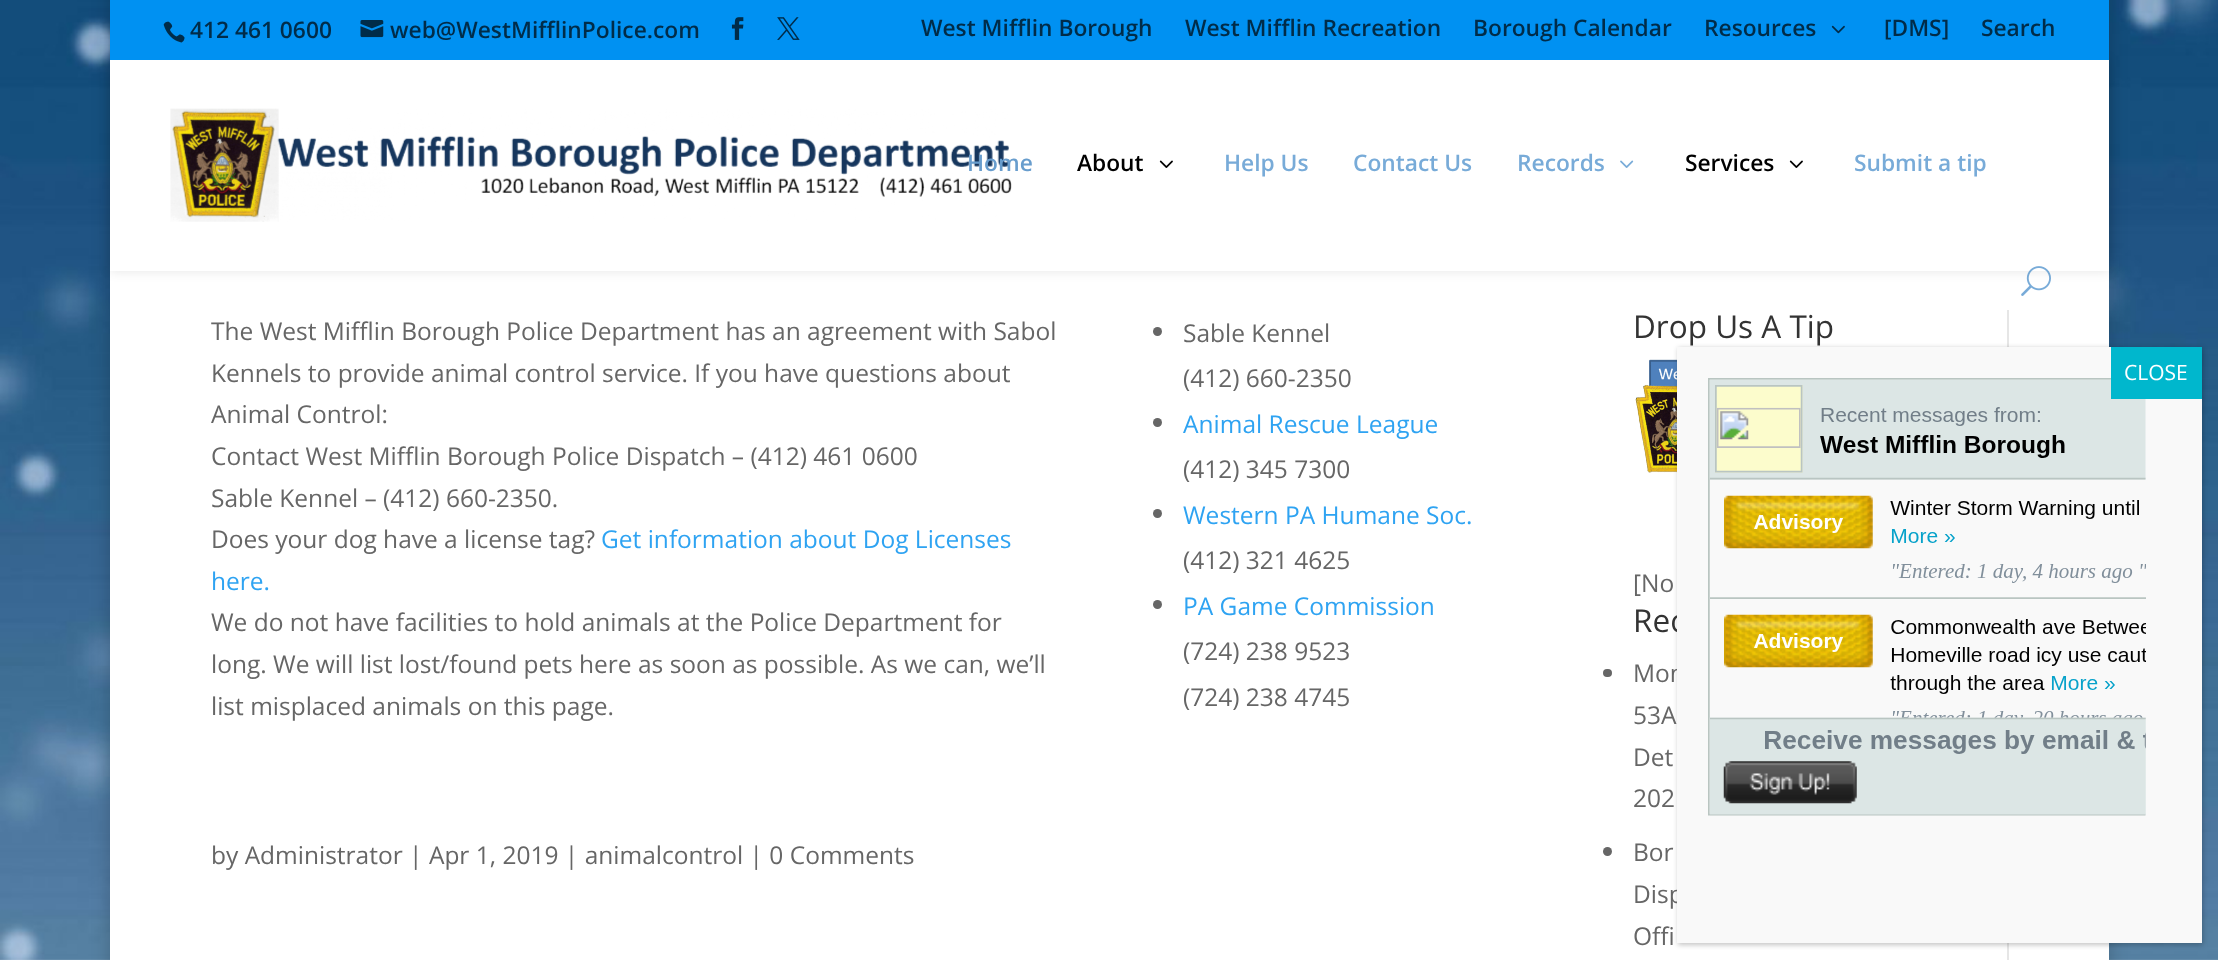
(async () => {
  const canvas = document.querySelector("canvas");
  canvas.width = 2218;
  canvas.height = 960;
  const ctx = canvas.getContext("2d");
  ctx.miterLimit = 4;
  ctx.fontKerning = "normal";
  async function loadImage(src) {
    const img = new Image();
    img.src = src;
    await img.decode();
    return img;
  }

  ctx.fillStyle = "#ffffff";
  ctx.fillRect(0, 0, 2218, 960);
  ctx.drawImage(await loadImage("img/1.png"), 0, 0, 2218, 960);
  ctx.fillStyle = "rgba(0, 0, 0, 0.2)";
  ctx.filter = "blur(9px)";
  ctx.beginPath();
  ctx.rect(110, -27, 1999, 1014);
  ctx.fill();
  ctx.filter = "none";
  ctx.fillStyle = "#ffffff";
  ctx.fillRect(110, 271, 1999, 689);
  ctx.fillStyle = "rgba(0, 0, 0, 0.1)";
  ctx.filter = "blur(6px)";
  ctx.beginPath();
  ctx.rect(110, 60, 1999, 211);
  ctx.fill();
  ctx.filter = "none";
  ctx.fillStyle = "#0091f2";
  ctx.fillRect(110, 0, 1999, 60);
  ctx.drawImage(await loadImage("img/2.png"), 163, 21, 22, 22);
  ctx.drawImage(await loadImage("img/3.png"), 360, 20, 24, 18);
  ctx.drawImage(await loadImage("img/4.png"), 731, 17, 13, 23);
  ctx.drawImage(await loadImage("img/5.png"), 777, 17, 23, 23);
  ctx.drawImage(await loadImage("img/6.png"), 1831, 25, 14, 9);
  ctx.fillStyle = "#ffffff";
  ctx.fillRect(110, 60, 1999, 211);
  ctx.drawImage(await loadImage("img/7.png"), 170, 108, 842, 114);
  ctx.drawImage(await loadImage("img/8.png"), 1159, 160, 14, 8);
  ctx.drawImage(await loadImage("img/9.png"), 1620, 160, 14, 8);
  ctx.drawImage(await loadImage("img/8.png"), 1789, 160, 14, 8);
  ctx.drawImage(await loadImage("img/10.png"), 2021, 266, 30, 30);
  ctx.fillStyle = "#666666";
  ctx.beginPath();
  ctx.arc(1157.5, 331.5, 4.5, 0, Math.PI * 2);
  ctx.fill();
  ctx.beginPath();
  ctx.arc(1157.5, 422.5, 4.5, 0, Math.PI * 2);
  ctx.fill();
  ctx.beginPath();
  ctx.arc(1157.5, 513.5, 4.5, 0, Math.PI * 2);
  ctx.fill();
  ctx.beginPath();
  ctx.arc(1157.5, 604.5, 4.5, 0, Math.PI * 2);
  ctx.fill();
  ctx.fillStyle = "#e6e6e6";
  ctx.fillRect(2007, 310, 2, 650);
  ctx.drawImage(await loadImage("img/11.png"), 1635, 359, 42, 114);
  ctx.fillStyle = "#666666";
  ctx.beginPath();
  ctx.roundRect(1603, 669, 9, 8, 4);
  ctx.fill();
  ctx.beginPath();
  ctx.arc(1607.5, 851.5, 4.5, 0, Math.PI * 2);
  ctx.fill();
  ctx.fillStyle = "rgba(2, 2, 2, 0.23)";
  ctx.filter = "blur(2.5px)";
  ctx.beginPath();
  ctx.rect(1678, 348, 525, 597);
  ctx.fill();
  ctx.filter = "none";
  ctx.font = "600 22.75px Open Sans";
  ctx.fillStyle = "#002c49";
  for (const [text, x, y] of [
    ["412 461 0600", 190, 38],
    ["web@WestMifflinPolice.com", 390, 38],
    ["West Mifflin Borough", 921, 36],
    ["West Mifflin Recreation", 1185, 36],
    ["Borough Calendar", 1473, 36],
    ["Resources", 1704, 36],
    ["[DMS]", 1884, 36],
    ["Search", 1981, 36],
  ]) {
    ctx.fillText(text, x, y);
  }
  ctx.fillStyle = "#689dcd";
  ctx.fillText("Home", 967, 171);
  ctx.fillStyle = "#000000";
  ctx.fillText("About", 1077, 171);
  ctx.fillStyle = "#78abd8";
  for (const [text, x, y] of [
    ["Help Us", 1224, 171],
    ["Contact Us", 1353, 171],
    ["Records", 1517, 171],
  ]) {
    ctx.fillText(text, x, y);
  }
  ctx.fillStyle = "#000000";
  ctx.fillText("Services", 1685, 171);
  ctx.fillStyle = "#78abd8";
  ctx.fillText("Submit a tip", 1854, 171);
  ctx.font = "24.5px Open Sans";
  ctx.fillStyle = "#666666";
  for (const [text, x, y] of [
    ["The West Mifflin Borough Police Department has an agreement with Sabol", 211, 340],
    ["Kennels to provide animal control service. If you have questions about", 211, 382],
    ["Animal Control:", 211, 423],
    ["Contact West Mifflin Borough Police Dispatch – (412) 461 0600", 211, 465],
    ["Sable Kennel – (412) 660-2350.", 211, 507],
    ["Does your dog have a license tag?", 211, 548],
  ]) {
    ctx.fillText(text, x, y);
  }
  ctx.fillStyle = "#2ea3f2";
  ctx.fillText("Get information about Dog Licenses", 601, 548);
  ctx.fillText("here.", 211, 590);
  ctx.fillStyle = "#666666";
  for (const [text, x, y] of [
    ["We do not have facilities to hold animals at the Police Department for", 211, 631],
    ["long. We will list lost/found pets here as soon as possible. As we can, we’ll", 211, 673],
    ["list misplaced animals on this page.", 211, 715],
    ["by Administrator | Apr 1, 2019 | animalcontrol | 0 Comments", 211, 864],
    ["Sable Kennel", 1183, 342],
    ["(412) 660-2350", 1183, 387],
  ]) {
    ctx.fillText(text, x, y);
  }
  ctx.fillStyle = "#2ea3f2";
  ctx.fillText("Animal Rescue League", 1183, 433);
  ctx.fillStyle = "#666666";
  ctx.fillText("(412) 345 7300", 1183, 478);
  ctx.fillStyle = "#2ea3f2";
  ctx.fillText("Western PA Humane Soc.", 1183, 524);
  ctx.fillStyle = "#666666";
  ctx.fillText("(412) 321 4625", 1183, 569);
  ctx.fillStyle = "#2ea3f2";
  ctx.fillText("PA Game Commission", 1183, 615);
  ctx.fillStyle = "#666666";
  ctx.fillText("(724) 238 9523", 1183, 660);
  ctx.fillText("(724) 238 4745", 1183, 706);
  ctx.font = "31.5px Open Sans";
  ctx.fillStyle = "#333333";
  ctx.fillText("Drop Us A Tip", 1633, 338);
  ctx.font = "24.5px Open Sans";
  ctx.fillStyle = "#666666";
  ctx.fillText("[No", 1633, 592);
  ctx.font = "31.5px Open Sans";
  ctx.fillStyle = "#333333";
  ctx.fillText("Rec", 1633, 632);
  ctx.font = "24.5px Open Sans";
  ctx.fillStyle = "#666666";
  for (const [text, x, y] of [
    ["Mon", 1633, 682],
    ["53A", 1633, 724],
    ["Det", 1633, 766],
    ["202", 1633, 807],
    ["Bor", 1633, 861],
    ["Disp", 1633, 903],
    ["Offi", 1633, 945],
  ]) {
    ctx.fillText(text, x, y);
  }
  ctx.fillStyle = "#f9f9f9";
  ctx.fillRect(1677, 347, 525, 596);
  ctx.drawImage(await loadImage("img/12.png"), 1708, 378, 438, 438);
  ctx.fillStyle = "#00b7cd";
  ctx.fillRect(2111, 347, 91, 52);
  ctx.font = "21px Open Sans";
  ctx.fillStyle = "#ffffff";
  ctx.fillText("CLOSE", 2124, 380);
})();
